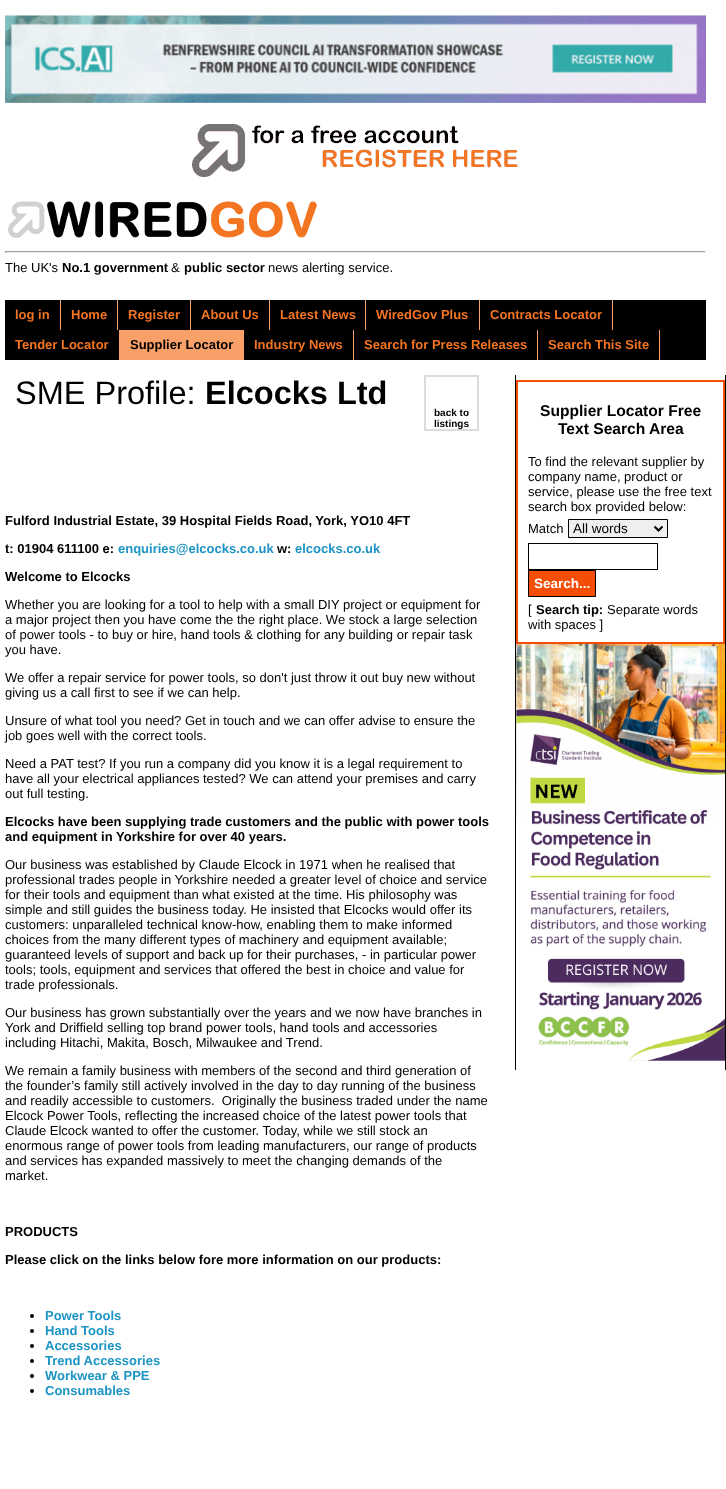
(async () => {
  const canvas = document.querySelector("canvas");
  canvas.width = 726;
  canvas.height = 1489;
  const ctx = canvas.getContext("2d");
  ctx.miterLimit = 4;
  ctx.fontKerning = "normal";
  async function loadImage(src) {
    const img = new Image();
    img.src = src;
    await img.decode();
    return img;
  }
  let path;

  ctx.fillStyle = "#ffffff";
  ctx.fillRect(0, 0, 726, 1489);
  ctx.drawImage(await loadImage("img/1.png"), 5, 15, 701, 88);
  ctx.drawImage(await loadImage("img/2.png"), 192, 124, 326, 53);
  ctx.drawImage(await loadImage("img/3.png"), 8, 201, 309, 37);
  for (const [x, y, w, h, color] of [
    [5, 251, 701, 1, "#9f9f9f"],
    [705, 251, 1, 2, "#eeeeee"],
    [5, 252, 701, 1, "#eeeeee"],
    [5, 251, 1, 2, "#9f9f9f"],
    [5, 300, 701, 60, "#000000"],
    [60, 300, 1, 30, "#f9a068"],
    [117, 300, 1, 30, "#f9a068"],
    [190, 300, 1, 30, "#f9a068"],
    [269, 300, 1, 30, "#f9a068"],
    [365, 300, 1, 30, "#f9a068"],
    [479, 300, 1, 30, "#f9a068"],
    [612, 300, 1, 30, "#f9a068"],
    [119, 330, 125, 30, "#f9a068"],
    [353, 330, 1, 30, "#f9a068"],
    [537, 330, 1, 30, "#f9a068"],
    [659, 330, 1, 30, "#f9a068"],
  ]) {
    ctx.fillStyle = color;
    ctx.fillRect(x, y, w, h);
  }
  ctx.strokeStyle = "#dddbdb";
  ctx.lineWidth = 2;
  ctx.strokeRect(425, 376, 53, 54);
  ctx.fillStyle = "#000000";
  ctx.beginPath();
  ctx.arc(32, 1316, 2, 0, Math.PI * 2);
  ctx.fill();
  ctx.beginPath();
  ctx.arc(32, 1331, 2, 0, Math.PI * 2);
  ctx.fill();
  ctx.beginPath();
  ctx.arc(32, 1346, 2, 0, Math.PI * 2);
  ctx.fill();
  ctx.beginPath();
  ctx.arc(32, 1361, 2, 0, Math.PI * 2);
  ctx.fill();
  ctx.beginPath();
  ctx.arc(32, 1376, 2, 0, Math.PI * 2);
  ctx.fill();
  ctx.beginPath();
  ctx.arc(32, 1391, 2, 0, Math.PI * 2);
  ctx.fill();
  ctx.fillRect(725, 375, 1, 695);
  ctx.fillRect(515, 375, 1, 695);
  ctx.strokeStyle = "#f34d06";
  ctx.strokeRect(517, 381, 207, 262);
  ctx.fillStyle = "#efefef";
  ctx.beginPath();
  ctx.rect(568.5, 519.5, 99, 18);
  ctx.fill();
  ctx.strokeStyle = "#000000";
  ctx.lineWidth = 1;
  ctx.stroke();
  path = new Path2D("M654.5 526.5L658.5 530.5L662.5 526.5");
  ctx.lineWidth = 2;
  ctx.stroke(path);
  ctx.lineWidth = 1;
  ctx.strokeRect(528.5, 543.5, 129, 26);
  ctx.fillStyle = "#f34d06";
  ctx.beginPath();
  ctx.rect(528.5, 570.5, 67, 26);
  ctx.fill();
  ctx.stroke();
  ctx.drawImage(await loadImage("img/4.png"), 516, 644, 209, 417);
  ctx.font = "13px Liberation Sans";
  ctx.fillStyle = "#000000";
  ctx.fillText("The UK's", 5, 272);
  ctx.font = "bold 13px Liberation Sans";
  ctx.fillText("No.1 government", 62, 272);
  ctx.font = "13px Liberation Sans";
  ctx.fillText("&", 171, 272);
  ctx.font = "bold 13px Liberation Sans";
  ctx.fillText("public sector", 184, 272);
  ctx.font = "13px Liberation Sans";
  ctx.fillText("news alerting service.", 268, 272);
  ctx.font = "bold 13px Liberation Sans";
  ctx.fillStyle = "#f37421";
  for (const [text, x, y] of [
    ["log in", 15, 319],
    ["Home", 71, 319],
    ["Register", 128, 319],
    ["About Us", 201, 319],
    ["Latest News", 280, 319],
    ["WiredGov Plus", 376, 319],
    ["Contracts Locator", 490, 319],
    ["Tender Locator", 15, 349],
  ]) {
    ctx.fillText(text, x, y);
  }
  ctx.fillStyle = "#000000";
  ctx.fillText("Supplier Locator", 130, 349);
  ctx.fillStyle = "#f37421";
  for (const [text, x, y] of [
    ["Industry News", 254, 349],
    ["Search for Press Releases", 364, 349],
    ["Search This Site", 548, 349],
  ]) {
    ctx.fillText(text, x, y);
  }
  ctx.font = "32.5px Liberation Sans";
  ctx.fillStyle = "#000000";
  ctx.fillText("SME Profile:", 15, 404);
  ctx.font = "bold 32.5px Liberation Sans";
  ctx.fillText("Elcocks Ltd", 205, 404);
  ctx.font = "bold 10px Liberation Sans";
  ctx.fillText("back to", 434, 416);
  ctx.fillText("listings", 434, 427);
  ctx.font = "bold 13px Liberation Sans";
  ctx.fillText("Fulford Industrial Estate, 39 Hospital Fields Road, York, YO10 4FT", 5, 525);
  ctx.fillText("t: 01904 611100 e:", 5, 553);
  ctx.fillStyle = "#1c94c4";
  ctx.fillText("enquiries@elcocks.co.uk", 118, 553);
  ctx.fillStyle = "#000000";
  ctx.fillText("w:", 277, 553);
  ctx.fillStyle = "#1c94c4";
  ctx.fillText("elcocks.co.uk", 295, 553);
  ctx.fillStyle = "#000000";
  ctx.fillText("Welcome to Elcocks", 5, 581);
  ctx.font = "13px Liberation Sans";
  for (const [text, x, y] of [
    ["Whether you are looking for a tool to help with a small DIY project or equipment for", 5, 609],
    ["a major project then you have come the the right place. We stock a large selection", 5, 624],
    ["of power tools - to buy or hire, hand tools & clothing for any building or repair task", 5, 639],
    ["you have.", 5, 654],
    ["We offer a repair service for power tools, so don't just throw it out buy new without", 5, 682],
    ["giving us a call first to see if we can help.", 5, 697],
    ["Unsure of what tool you need? Get in touch and we can offer advise to ensure the", 5, 725],
    ["job goes well with the correct tools.", 5, 740],
    ["Need a PAT test? If you run a company did you know it is a legal requirement to", 5, 768],
    ["have all your electrical appliances tested? We can attend your premises and carry", 5, 783],
    ["out full testing.", 5, 798],
  ]) {
    ctx.fillText(text, x, y);
  }
  ctx.font = "bold 13px Liberation Sans";
  ctx.fillText("Elcocks have been supplying trade customers and the public with power tools", 5, 826);
  ctx.fillText("and equipment in Yorkshire for over 40 years.", 5, 841);
  ctx.font = "13px Liberation Sans";
  for (const [text, x, y] of [
    ["Our business was established by Claude Elcock in 1971 when he realised that", 5, 869],
    ["professional trades people in Yorkshire needed a greater level of choice and service", 5, 884],
    ["for their tools and equipment than what existed at the time. His philosophy was", 5, 899],
    ["simple and still guides the business today. He insisted that Elcocks would offer its", 5, 914],
    ["customers: unparalleled technical know-how, enabling them to make informed", 5, 929],
    ["choices from the many different types of machinery and equipment available;", 5, 944],
    ["guaranteed levels of support and back up for their purchases, - in particular power", 5, 959],
    ["tools; tools, equipment and services that offered the best in choice and value for", 5, 974],
    ["trade professionals.", 5, 989],
    ["Our business has grown substantially over the years and we now have branches in", 5, 1017],
    ["York and Driffield selling top brand power tools, hand tools and accessories", 5, 1032],
    ["including Hitachi, Makita, Bosch, Milwaukee and Trend.", 5, 1047],
    ["We remain a family business with members of the second and third generation of", 5, 1075],
    ["the founder’s family still actively involved in the day to day running of the business", 5, 1090],
    ["and readily accessible to customers.  Originally the business traded under the name", 5, 1105],
    ["Elcock Power Tools, reflecting the increased choice of the latest power tools that", 5, 1120],
    ["Claude Elcock wanted to offer the customer. Today, while we still stock an", 5, 1135],
    ["enormous range of power tools from leading manufacturers, our range of products", 5, 1150],
    ["and services has expanded massively to meet the changing demands of the", 5, 1165],
    ["market.", 5, 1180],
  ]) {
    ctx.fillText(text, x, y);
  }
  ctx.font = "bold 13px Liberation Sans";
  ctx.fillText("PRODUCTS", 5, 1236);
  ctx.fillText("Please click on the links below fore more information on our products:", 5, 1264);
  ctx.fillStyle = "#1c94c4";
  for (const [text, x, y] of [
    ["Power Tools", 45, 1320],
    ["Hand Tools", 45, 1335],
    ["Accessories", 45, 1350],
    ["Trend Accessories", 45, 1365],
    ["Workwear & PPE", 45, 1380],
    ["Consumables", 45, 1395],
  ]) {
    ctx.fillText(text, x, y);
  }
  ctx.font = "bold 15.6px Liberation Sans";
  ctx.fillStyle = "#000000";
  ctx.fillText("Supplier Locator Free", 540, 416);
  ctx.fillText("Text Search Area", 558, 434);
  ctx.font = "13px Liberation Sans";
  for (const [text, x, y] of [
    ["To find the relevant supplier by", 528, 466],
    ["company name, product or", 528, 481],
    ["service, please use the free text", 528, 496],
    ["search box provided below:", 528, 511],
    ["Match", 528, 533],
  ]) {
    ctx.fillText(text, x, y);
  }
  ctx.font = "13.5px Liberation Sans";
  ctx.fillText("All words", 573, 533);
  ctx.font = "bold 13.5px Liberation Sans";
  ctx.fillStyle = "#ffffff";
  ctx.fillText("Search...", 534, 588);
  ctx.font = "13px Liberation Sans";
  ctx.fillStyle = "#000000";
  ctx.fillText("[", 528, 614);
  ctx.font = "bold 13px Liberation Sans";
  ctx.fillText("Search tip:", 536, 614);
  ctx.font = "13px Liberation Sans";
  ctx.fillText("Separate words", 607, 614);
  ctx.fillText("with spaces ]", 528, 629);
})();
